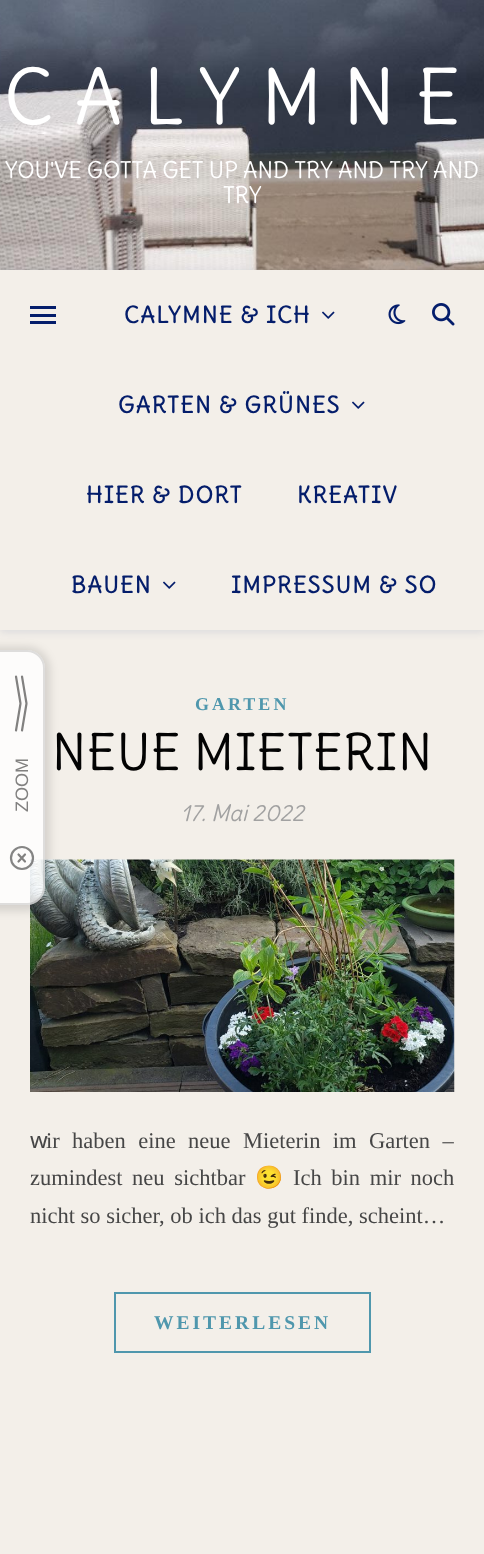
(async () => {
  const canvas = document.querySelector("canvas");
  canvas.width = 484;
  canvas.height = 1554;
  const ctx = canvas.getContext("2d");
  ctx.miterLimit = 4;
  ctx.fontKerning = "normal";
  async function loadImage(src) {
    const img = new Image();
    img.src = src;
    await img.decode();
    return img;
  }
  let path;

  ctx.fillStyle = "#f3efe9";
  ctx.fillRect(0, 0, 484, 1554);
  ctx.drawImage(await loadImage("img/1.png"), 0, 0, 484, 270);
  ctx.save();
  path = new Path2D("M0 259H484V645H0ZM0 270H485V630H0Z");
  ctx.clip(path, "evenodd");
  ctx.fillStyle = "rgba(4, 29, 107, 0.1)";
  ctx.filter = "blur(4px)";
  ctx.beginPath();
  ctx.rect(0, 272, 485, 360);
  ctx.fill();
  ctx.filter = "none";
  ctx.restore();
  ctx.drawImage(await loadImage("img/2.png"), 388, 304, 18, 21);
  ctx.drawImage(await loadImage("img/3.png"), 432, 303, 23, 23);
  for (const [x, y, w, h, color] of [
    [30, 306, 26, 3, "#041d6b"],
    [30, 314, 26, 3, "#041d6b"],
    [30, 321, 26, 3, "#041d6b"],
  ]) {
    ctx.fillStyle = color;
    ctx.fillRect(x, y, w, h);
  }
  ctx.drawImage(await loadImage("img/4.png"), 322, 311, 13, 8);
  ctx.drawImage(await loadImage("img/4.png"), 352, 401, 13, 8);
  ctx.drawImage(await loadImage("img/4.png"), 163, 581, 13, 8);
  ctx.drawImage(await loadImage("img/5.png"), 30, 859, 425, 233);
  ctx.strokeStyle = "#4f97ad";
  ctx.lineWidth = 2;
  ctx.strokeRect(115, 1293, 255, 59);
  ctx.save();
  path = new Path2D("M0 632H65V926H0ZM-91 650H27C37 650 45 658 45 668V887C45 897 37 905 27 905H-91C-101 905-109 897-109 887V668C-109 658-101 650-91 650Z");
  ctx.clip(path, "evenodd");
  ctx.fillStyle = "rgba(0, 0, 0, 0.12)";
  ctx.filter = "blur(4.5px)";
  ctx.beginPath();
  ctx.roundRect(-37, 647, 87, 264, 23);
  ctx.fill();
  ctx.filter = "none";
  ctx.restore();
  ctx.fillStyle = "rgba(255, 255, 255, 0.8)";
  ctx.beginPath();
  ctx.roundRect(-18, 650, 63, 255, 18);
  ctx.fill();
  ctx.beginPath();
  ctx.roundRect(-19, 651, 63, 253, 17);
  ctx.strokeStyle = "rgba(0, 0, 0, 0.12)";
  ctx.stroke();
  path = new Path2D("M22 676.5L26.5 703.5M26.5 703.5L22 730.5M20.5 703.5L16 676.5M16 730.5L20.5 703.5");
  ctx.strokeStyle = "#828180";
  ctx.lineWidth = 2.2;
  ctx.lineCap = "round";
  ctx.stroke(path);
  ctx.beginPath();
  ctx.arc(22, 858, 11, 0, Math.PI * 2);
  ctx.strokeStyle = "rgba(102, 102, 102, 0.8)";
  ctx.stroke();
  path = new Path2D("M25 854.5L18.5 861.5M18.5 854.5L25 861.5");
  ctx.strokeStyle = "#828180";
  ctx.lineJoin = "round";
  ctx.stroke(path);
  ctx.letterSpacing = "21px";
  ctx.font = "75px Delius";
  ctx.fillStyle = "#ffffff";
  ctx.fillText("CALYMNE", 4, 124);
  ctx.letterSpacing = "0px";
  ctx.font = "22.5px Delius";
  ctx.fillText("YOU'VE GOTTA GET UP AND TRY AND TRY AND", 5, 178);
  ctx.fillText("TRY", 223, 203);
  ctx.letterSpacing = "1.5px";
  ctx.font = "bold 22.5px Delius";
  ctx.fillStyle = "#041d6b";
  for (const [text, x, y] of [
    ["CALYMNE & ICH", 124, 323],
    ["GARTEN & GRÜNES", 118, 413],
    ["HIER & DORT", 86, 503],
    ["KREATIV", 297, 503],
    ["BAUEN", 71, 593],
    ["IMPRESSUM & SO", 231, 593],
  ]) {
    ctx.fillText(text, x, y);
  }
  ctx.letterSpacing = "3px";
  ctx.font = "bold 18px Liberation Serif";
  ctx.fillStyle = "#4f97ad";
  ctx.fillText("GARTEN", 195, 710);
  ctx.letterSpacing = "0.75px";
  ctx.font = "49.5px Delius";
  ctx.fillStyle = "#030303";
  ctx.fillText("NEUE MIETERIN", 52, 770);
  ctx.letterSpacing = "0px";
  ctx.font = "italic 22.5px Delius";
  ctx.fillStyle = "#a1a1a1";
  ctx.fillText("17. Mai 2022", 181, 821);
  ctx.font = "22.5px Noto Sans";
  ctx.fillStyle = "#464646";
  ctx.fillText("w", 30, 1148);
  ctx.wordSpacing = "6.75px";
  ctx.font = "22.5px Liberation Serif";
  ctx.fillText("ir haben eine neue Mieterin im Garten –", 46, 1148);
  ctx.wordSpacing = "4px";
  ctx.fillText("zumindest neu sichtbar", 30, 1185);
  ctx.wordSpacing = "0px";
  ctx.font = "22.5px Noto Color Emoji";
  ctx.fillText("😉", 255, 1185);
  ctx.wordSpacing = "4px";
  ctx.font = "22.5px Liberation Serif";
  ctx.fillText("Ich bin mir noch", 293, 1185);
  ctx.wordSpacing = "0px";
  ctx.fillText("nicht so sicher, ob ich das gut finde, scheint…", 30, 1223);
  ctx.letterSpacing = "3px";
  ctx.font = "bold 19.5px Liberation Serif";
  ctx.fillStyle = "#4f97ad";
  ctx.fillText("WEITERLESEN", 154, 1329);
  ctx.letterSpacing = "0px";
  ctx.font = "18px Liberation Sans";
  ctx.fillStyle = "#828180";
  ctx.save();
  ctx.translate(28, 812);
  ctx.rotate(-90 * Math.PI / 180);
  ctx.fillText("ZOOM", 0, 0);
  ctx.restore();
})();
